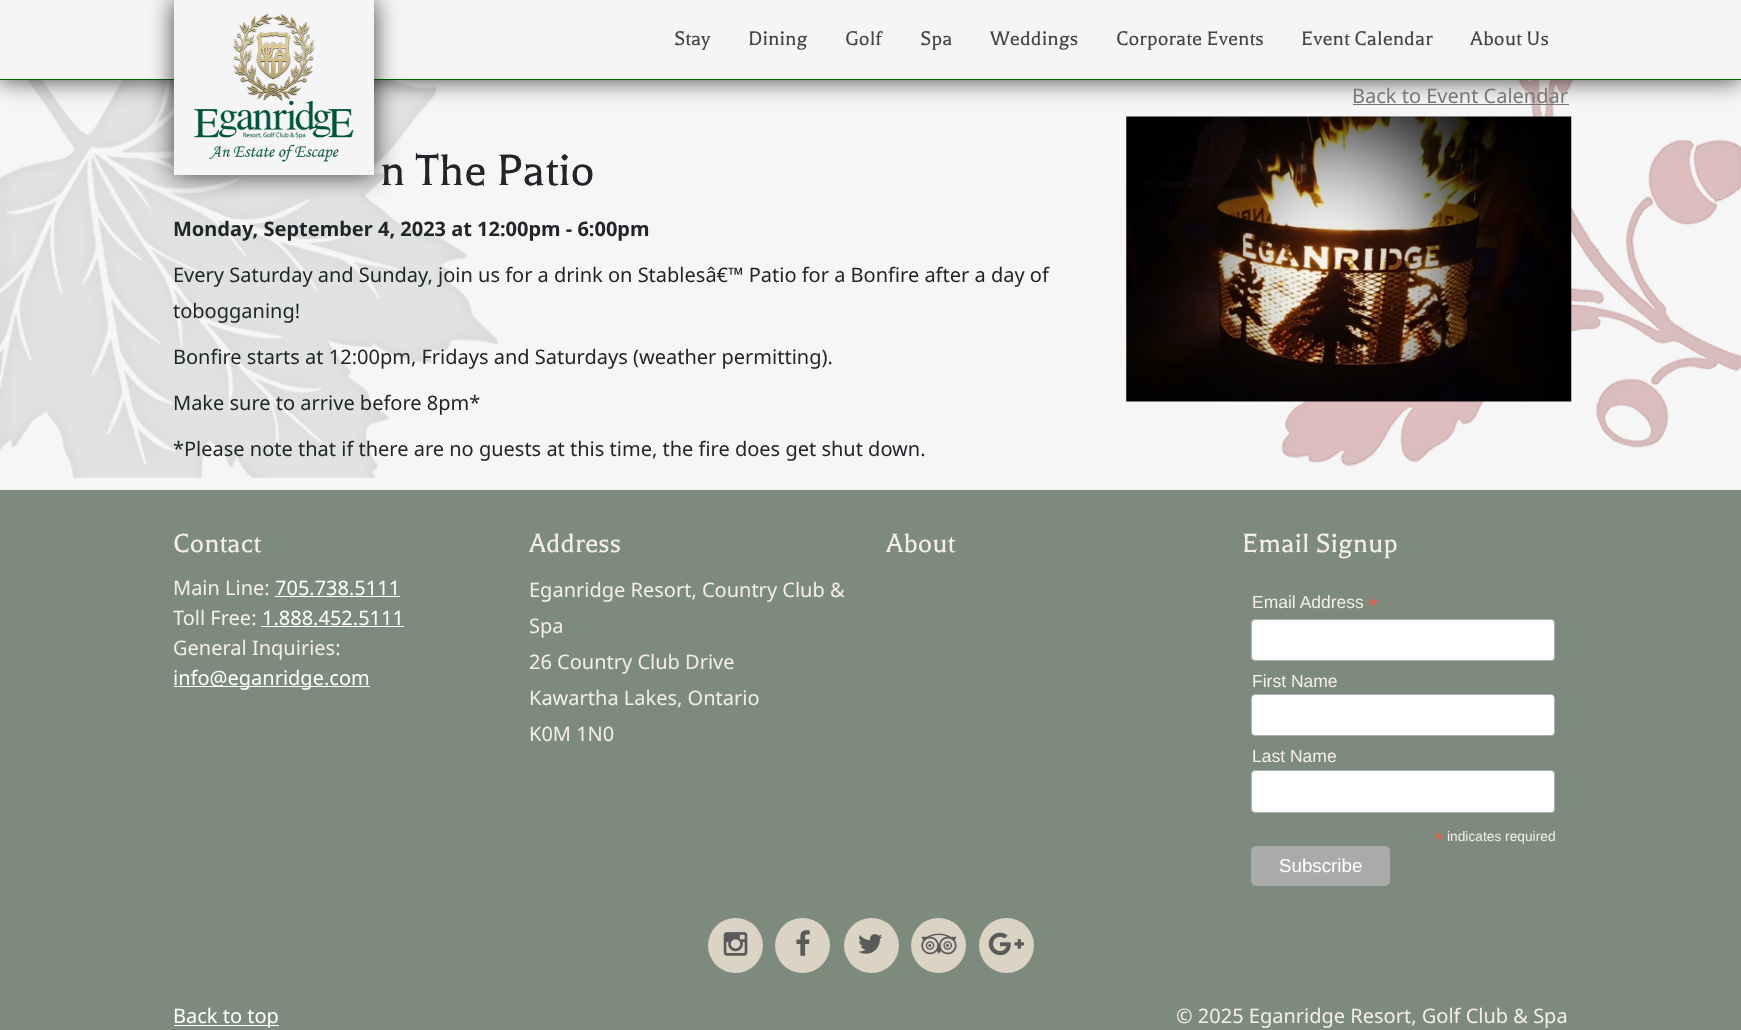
(async () => {
  const canvas = document.querySelector("canvas");
  canvas.width = 1741;
  canvas.height = 1030;
  const ctx = canvas.getContext("2d");
  ctx.miterLimit = 4;
  ctx.fontKerning = "normal";
  async function loadImage(src) {
    const img = new Image();
    img.src = src;
    await img.decode();
    return img;
  }

  ctx.fillStyle = "#f6f6f6";
  ctx.fillRect(0, 0, 1741, 1030);
  ctx.drawImage(await loadImage("img/2.png"), 0, 80, 499, 398);
  ctx.drawImage(await loadImage("img/3.png"), 1281, 80, 460, 387);
  ctx.fillStyle = "#777777";
  ctx.fillRect(1353, 104, 216, 1);
  ctx.drawImage(await loadImage("img/4.png"), 1126, 116, 446, 286);
  ctx.fillStyle = "rgba(0, 0, 0, 0.75)";
  ctx.filter = "blur(12.5px)";
  ctx.beginPath();
  ctx.rect(0, 0, 1741, 80);
  ctx.fill();
  ctx.filter = "none";
  ctx.fillStyle = "#f5f5f5";
  ctx.fillRect(0, 0, 1741, 79);
  ctx.fillStyle = "#006600";
  ctx.fillRect(0, 79, 1741, 1);
  ctx.fillStyle = "rgba(0, 0, 0, 0.75)";
  ctx.filter = "blur(12.5px)";
  ctx.beginPath();
  ctx.rect(174, 0, 200, 175);
  ctx.fill();
  ctx.filter = "none";
  ctx.fillStyle = "#f5f5f5";
  ctx.fillRect(174, 0, 200, 175);
  ctx.drawImage(await loadImage("img/1.png"), 194, 13, 160, 149);
  for (const [x, y, w, h, color] of [
    [0, 490, 1741, 540, "#7d8a7e"],
    [275, 596, 125, 1, "#ffffff"],
    [261, 626, 143, 1, "#ffffff"],
    [174, 686, 196, 1, "#ffffff"],
  ]) {
    ctx.fillStyle = color;
    ctx.fillRect(x, y, w, h);
  }
  ctx.beginPath();
  ctx.roundRect(1251.5, 619.5, 303, 41, 3.5);
  ctx.fill();
  ctx.strokeStyle = "#abb0b2";
  ctx.stroke();
  ctx.beginPath();
  ctx.roundRect(1251.5, 694.5, 303, 41, 3.5);
  ctx.fill();
  ctx.stroke();
  ctx.beginPath();
  ctx.roundRect(1251.5, 770.5, 303, 42, 3.5);
  ctx.fill();
  ctx.stroke();
  ctx.fillStyle = "#aaaaaa";
  ctx.beginPath();
  ctx.roundRect(1251, 846, 139, 40, 5);
  ctx.fill();
  ctx.fillStyle = "#dbd3c3";
  ctx.beginPath();
  ctx.arc(735.5, 945.5, 27.5, 0, Math.PI * 2);
  ctx.fill();
  ctx.drawImage(await loadImage("img/5.png"), 723, 932, 25, 24);
  ctx.beginPath();
  ctx.arc(802.5, 945.5, 27.5, 0, Math.PI * 2);
  ctx.fill();
  ctx.drawImage(await loadImage("img/6.png"), 796, 930, 14, 26);
  ctx.beginPath();
  ctx.arc(871.5, 945.5, 27.5, 0, Math.PI * 2);
  ctx.fill();
  ctx.drawImage(await loadImage("img/7.png"), 858, 934, 25, 20);
  ctx.beginPath();
  ctx.arc(938.5, 945.5, 27.5, 0, Math.PI * 2);
  ctx.fill();
  ctx.drawImage(await loadImage("img/8.png"), 921, 933, 36, 22);
  ctx.beginPath();
  ctx.arc(1006.5, 945.5, 27.5, 0, Math.PI * 2);
  ctx.fill();
  ctx.drawImage(await loadImage("img/9.png"), 988, 932, 37, 24);
  ctx.fillStyle = "#ffffff";
  ctx.fillRect(174, 1025, 105, 1);
  ctx.font = "22.5px Balthazar";
  ctx.fillStyle = "#444444";
  for (const [text, x, y] of [
    ["Stay", 674, 45],
    ["Dining", 748, 45],
    ["Golf", 845, 45],
    ["Spa", 920, 45],
    ["Weddings", 990, 45],
    ["Corporate Events", 1116, 45],
    ["Event Calendar", 1301, 45],
    ["About Us", 1470, 45],
  ]) {
    ctx.fillText(text, x, y);
  }
  ctx.font = "20px Noto Sans";
  ctx.fillStyle = "#777777";
  ctx.fillText("Back to Event Calendar", 1352, 103);
  ctx.font = "50px Balthazar";
  ctx.fillStyle = "#212529";
  ctx.fillText("n The Patio", 380, 185);
  ctx.font = "bold 20px Noto Sans";
  ctx.fillText("Monday, September 4, 2023 at 12:00pm - 6:00pm", 173, 236);
  ctx.font = "20px Noto Sans";
  for (const [text, x, y] of [
    ["Every Saturday and Sunday, join us for a drink on Stablesâ€™ Patio for a Bonfire after a day of", 173, 282],
    ["tobogganing!", 173, 318],
    ["Bonfire starts at 12:00pm, Fridays and Saturdays (weather permitting).", 173, 364],
    ["Make sure to arrive before 8pm*", 173, 410],
    ["*Please note that if there are no guests at this time, the fire does get shut down.", 173, 456],
  ]) {
    ctx.fillText(text, x, y);
  }
  ctx.font = "30px Balthazar";
  ctx.fillStyle = "#f4eee6";
  ctx.fillText("Contact", 173, 552);
  ctx.font = "20px Noto Sans";
  ctx.fillText("Main Line:", 173, 595);
  ctx.fillStyle = "#ffffff";
  ctx.fillText("705.738.5111", 275, 595);
  ctx.fillStyle = "#f4eee6";
  ctx.fillText("Toll Free:", 173, 625);
  ctx.fillStyle = "#ffffff";
  ctx.fillText("1.888.452.5111", 262, 625);
  ctx.fillStyle = "#f4eee6";
  ctx.fillText("General Inquiries:", 173, 655);
  ctx.fillStyle = "#ffffff";
  ctx.fillText("info@eganridge.com", 173, 685);
  ctx.font = "30px Balthazar";
  ctx.fillStyle = "#f4eee6";
  ctx.fillText("Address", 529, 552);
  ctx.font = "20px Noto Sans";
  for (const [text, x, y] of [
    ["Eganridge Resort, Country Club &", 529, 597],
    ["Spa", 529, 633],
    ["26 Country Club Drive", 529, 669],
    ["Kawartha Lakes, Ontario", 529, 705],
    ["K0M 1N0", 529, 741],
  ]) {
    ctx.fillText(text, x, y);
  }
  ctx.font = "30px Balthazar";
  ctx.fillText("About", 886, 552);
  ctx.fillText("Email Signup", 1242, 552);
  ctx.font = "17.5px Liberation Sans";
  ctx.fillText("Email Address", 1252, 608);
  ctx.font = "26px Liberation Sans";
  ctx.fillStyle = "#e85c41";
  ctx.fillText("*", 1368, 615);
  ctx.font = "17.5px Liberation Sans";
  ctx.fillStyle = "#f4eee6";
  ctx.fillText("First Name", 1252, 687);
  ctx.fillText("Last Name", 1252, 762);
  ctx.font = "21px Liberation Sans";
  ctx.fillStyle = "#e85c41";
  ctx.fillText("*", 1435, 847);
  ctx.font = "13.75px Liberation Sans";
  ctx.fillStyle = "#f4eee6";
  ctx.fillText("indicates required", 1447, 841);
  ctx.font = "18.75px Liberation Sans";
  ctx.fillStyle = "#ffffff";
  ctx.fillText("Subscribe", 1279, 872);
  ctx.font = "20px Noto Sans";
  ctx.fillText("Back to top", 173, 1023);
  ctx.fillStyle = "#f4eee6";
  ctx.fillText("© 2025 Eganridge Resort, Golf Club & Spa", 1176, 1023);
})();
